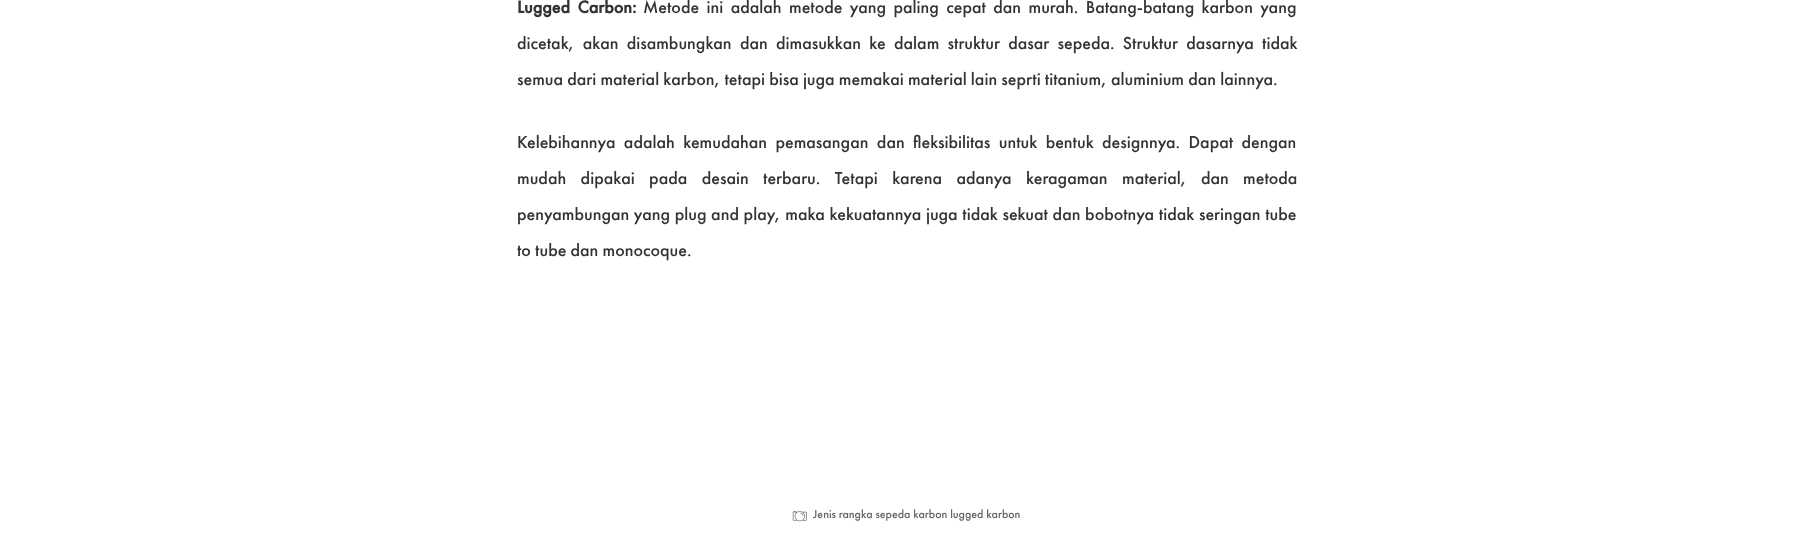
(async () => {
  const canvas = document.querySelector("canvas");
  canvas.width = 1813;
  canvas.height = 536;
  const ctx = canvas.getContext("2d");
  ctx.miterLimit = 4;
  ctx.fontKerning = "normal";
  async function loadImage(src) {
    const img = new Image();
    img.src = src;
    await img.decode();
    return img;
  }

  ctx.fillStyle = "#ffffff";
  ctx.fillRect(0, 0, 1813, 536);
  ctx.drawImage(await loadImage("img/1.png"), 792, 511, 15, 11);
  ctx.wordSpacing = "3.25px";
  ctx.font = "bold 18px Futura PT";
  ctx.fillStyle = "#333333";
  ctx.fillText("Lugged Carbon:", 517, 13);
  ctx.font = "500 18px Futura PT";
  ctx.fillText("Metode ini adalah metode yang paling cepat dan murah. Batang-batang karbon yang", 643, 13);
  ctx.wordSpacing = "4.1px";
  ctx.fillText("dicetak, akan disambungkan dan dimasukkan ke dalam struktur dasar sepeda. Struktur dasarnya tidak", 517, 49);
  ctx.wordSpacing = "0px";
  ctx.fillText("semua dari material karbon, tetapi bisa juga memakai material lain seprti titanium, aluminium dan lainnya.", 517, 85);
  ctx.wordSpacing = "4.25px";
  ctx.fillText("Kelebihannya adalah kemudahan pemasangan dan fleksibilitas untuk bentuk designnya. Dapat dengan", 517, 148);
  ctx.wordSpacing = "10.25px";
  ctx.fillText("mudah dipakai pada desain terbaru. Tetapi karena adanya keragaman material, dan metoda", 517, 184);
  ctx.wordSpacing = "0.5px";
  ctx.fillText("penyambungan yang plug and play, maka kekuatannya juga tidak sekuat dan bobotnya tidak seringan tube", 517, 220);
  ctx.wordSpacing = "0px";
  ctx.fillText("to tube dan monocoque.", 517, 256);
  ctx.font = "500 12px Futura PT";
  ctx.fillStyle = "#666666";
  ctx.fillText("Jenis rangka sepeda karbon lugged karbon", 813, 518);
})();
